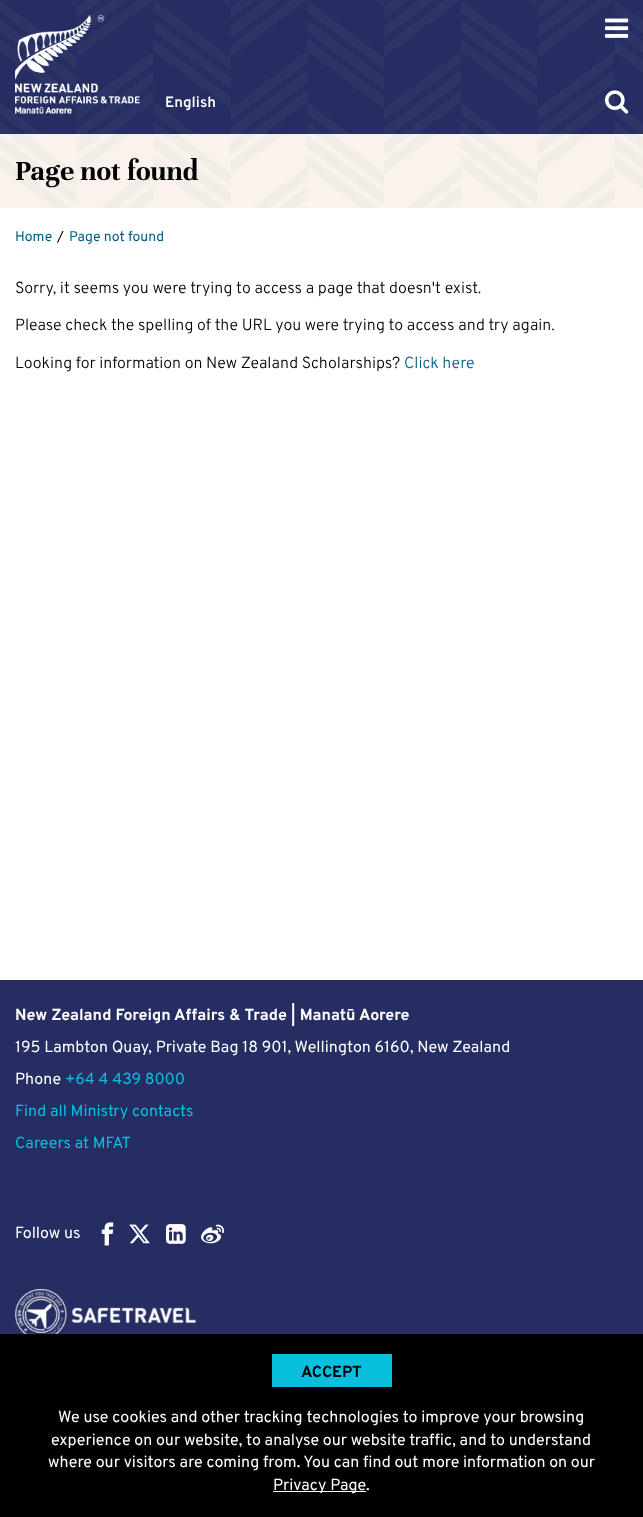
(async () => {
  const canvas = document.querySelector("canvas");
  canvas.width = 643;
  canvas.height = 1517;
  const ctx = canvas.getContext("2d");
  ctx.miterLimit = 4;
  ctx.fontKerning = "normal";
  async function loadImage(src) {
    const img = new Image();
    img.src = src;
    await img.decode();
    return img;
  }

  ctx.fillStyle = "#ffffff";
  ctx.fillRect(0, 0, 643, 1517);
  ctx.fillStyle = "#252d62";
  ctx.fillRect(0, 0, 643, 134);
  ctx.drawImage(await loadImage("img/1.png"), 0, 0, 643, 134);
  ctx.drawImage(await loadImage("img/2.png"), 15, 15, 125, 99);
  ctx.drawImage(await loadImage("img/3.png"), 605, 18, 24, 20);
  ctx.drawImage(await loadImage("img/4.png"), 605, 90, 24, 24);
  ctx.fillStyle = "#f9f3ec";
  ctx.fillRect(0, 134, 643, 74);
  ctx.drawImage(await loadImage("img/5.png"), 0, 134, 643, 74);
  ctx.fillStyle = "#252d62";
  ctx.fillRect(0, 980, 643, 354);
  ctx.drawImage(await loadImage("img/6.png"), 101, 1222, 13, 24);
  ctx.drawImage(await loadImage("img/7.png"), 129, 1224, 21, 20);
  ctx.drawImage(await loadImage("img/8.png"), 166, 1224, 20, 20);
  ctx.drawImage(await loadImage("img/9.png"), 201, 1224, 23, 20);
  ctx.drawImage(await loadImage("img/10.png"), 15, 1289, 181, 45);
  for (const [x, y, w, h, color] of [
    [0, 1334, 643, 183, "#000000"],
    [272, 1354, 120, 33, "#08c0de"],
    [273, 1491, 93, 1, "#ffffff"],
  ]) {
    ctx.fillStyle = color;
    ctx.fillRect(x, y, w, h);
  }
  ctx.font = "600 15px Overpass";
  ctx.fillText("English", 165, 107);
  ctx.font = "bold 30px Unna";
  ctx.fillStyle = "#000000";
  ctx.fillText("Page not found", 15, 180);
  ctx.font = "14px Overpass";
  ctx.fillStyle = "#005d85";
  ctx.fillText("Home", 15, 241);
  ctx.fillStyle = "#000000";
  ctx.fillText("/", 57, 241);
  ctx.fillStyle = "#005d85";
  ctx.fillText("Page not found", 69, 241);
  ctx.font = "300 16px Overpass";
  ctx.fillStyle = "#000000";
  for (const [text, x, y] of [
    ["Sorry, it seems you were trying to access a page that doesn't exist.", 15, 293],
    ["Please check the spelling of the URL you were trying to access and try again.", 15, 330],
    ["Looking for information on New Zealand Scholarships?", 15, 368],
  ]) {
    ctx.fillText(text, x, y);
  }
  ctx.fillStyle = "#005d85";
  ctx.fillText("Click here", 404, 368);
  ctx.font = "bold 16px Overpass";
  ctx.fillStyle = "#ffffff";
  ctx.fillText("New Zealand Foreign Affairs & Trade | Manatū Aorere", 15, 1020);
  ctx.font = "16px Overpass";
  ctx.fillText("195 Lambton Quay, Private Bag 18 901, Wellington 6160, New Zealand", 15, 1052);
  ctx.fillText("Phone", 15, 1084);
  ctx.fillStyle = "#08c0de";
  for (const [text, x, y] of [
    ["+64 4 439 8000", 65, 1084],
    ["Find all Ministry contacts", 15, 1116],
    ["Careers at MFAT", 15, 1148],
  ]) {
    ctx.fillText(text, x, y);
  }
  ctx.fillStyle = "#ffffff";
  ctx.fillText("Follow us", 15, 1238);
  ctx.font = "bold 16px Overpass";
  ctx.fillStyle = "#000000";
  ctx.fillText("ACCEPT", 301, 1377);
  ctx.font = "16px Overpass";
  ctx.fillStyle = "#ffffff";
  for (const [text, x, y] of [
    ["We use cookies and other tracking technologies to improve your browsing", 58, 1422],
    ["experience on our website, to analyse our website traffic, and to understand", 51, 1445],
    ["where our visitors are coming from. You can find out more information on our", 48, 1467],
    ["Privacy Page.", 273, 1490],
  ]) {
    ctx.fillText(text, x, y);
  }
})();
